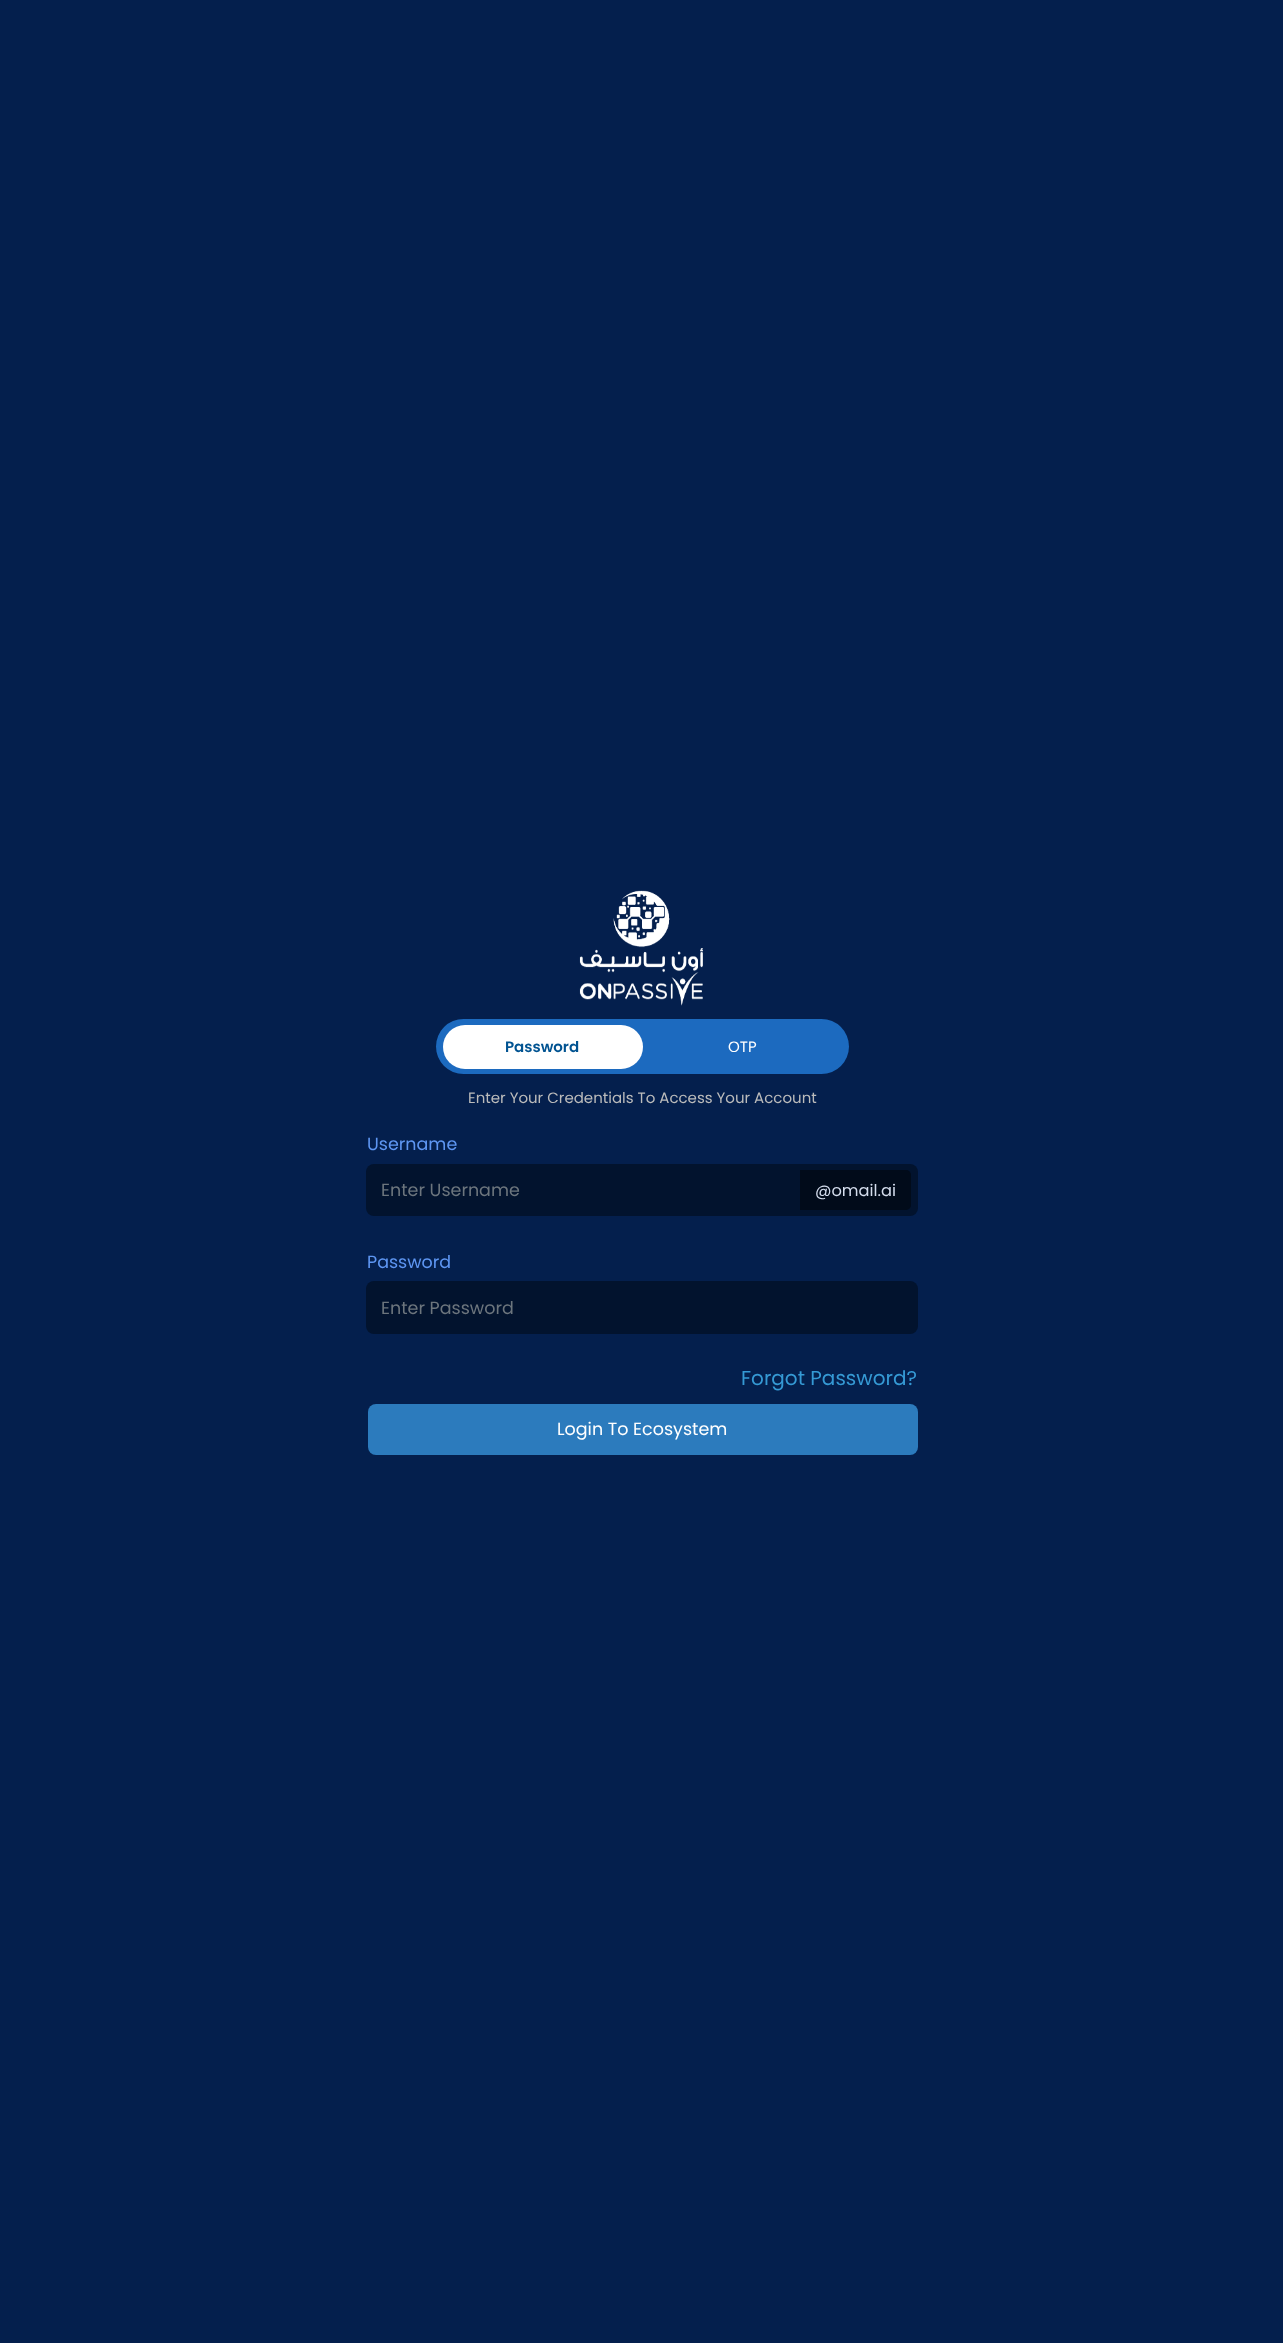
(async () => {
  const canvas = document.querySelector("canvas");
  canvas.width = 1283;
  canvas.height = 2343;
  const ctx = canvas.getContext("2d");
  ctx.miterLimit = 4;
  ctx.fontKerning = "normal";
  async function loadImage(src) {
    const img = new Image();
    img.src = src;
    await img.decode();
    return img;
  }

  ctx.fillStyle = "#041f4d";
  ctx.fillRect(0, 0, 1283, 2343);
  ctx.drawImage(await loadImage("img/1.png"), 579, 890, 124, 116);
  ctx.fillStyle = "#1c6abf";
  ctx.beginPath();
  ctx.roundRect(436, 1019, 413, 55, 27.5);
  ctx.fill();
  ctx.fillStyle = "#ffffff";
  ctx.beginPath();
  ctx.roundRect(443, 1025, 200, 44, 22);
  ctx.fill();
  ctx.fillStyle = "#02132e";
  ctx.beginPath();
  ctx.roundRect(366, 1164, 552, 52, 8);
  ctx.fill();
  ctx.fillStyle = "#010b1a";
  ctx.beginPath();
  ctx.roundRect(800, 1170, 111, 40, [0, 5, 5, 0]);
  ctx.fill();
  ctx.fillStyle = "#02132e";
  ctx.beginPath();
  ctx.roundRect(366, 1281, 552, 53, 8);
  ctx.fill();
  ctx.fillStyle = "#2c7bbd";
  ctx.beginPath();
  ctx.roundRect(368, 1404, 550, 51, 8);
  ctx.fill();
  ctx.font = "600 15px Poppins";
  ctx.fillStyle = "#015391";
  ctx.fillText("Password", 505, 1052);
  ctx.font = "15px Poppins";
  ctx.fillStyle = "#ffffff";
  ctx.fillText("OTP", 728, 1052);
  ctx.fillStyle = "#bbbbbb";
  ctx.fillText("Enter Your Credentials To Access Your Account", 468, 1103);
  ctx.font = "17.5px Poppins";
  ctx.fillStyle = "#5e96f2";
  ctx.fillText("Username", 367, 1150);
  ctx.fillStyle = "#6c757d";
  ctx.fillText("Enter Username", 381, 1196);
  ctx.font = "16.25px Poppins";
  ctx.fillStyle = "#d4dded";
  ctx.fillText("@omail.ai", 815, 1196);
  ctx.font = "17.5px Poppins";
  ctx.fillStyle = "#5e96f2";
  ctx.fillText("Password", 367, 1268);
  ctx.fillStyle = "#6c757d";
  ctx.fillText("Enter Password", 381, 1314);
  ctx.font = "20px Poppins";
  ctx.fillStyle = "#3599d4";
  ctx.fillText("Forgot Password?", 741, 1385);
  ctx.font = "17.5px Poppins";
  ctx.fillStyle = "#ffffff";
  ctx.fillText("Login To Ecosystem", 557, 1435);
})();
